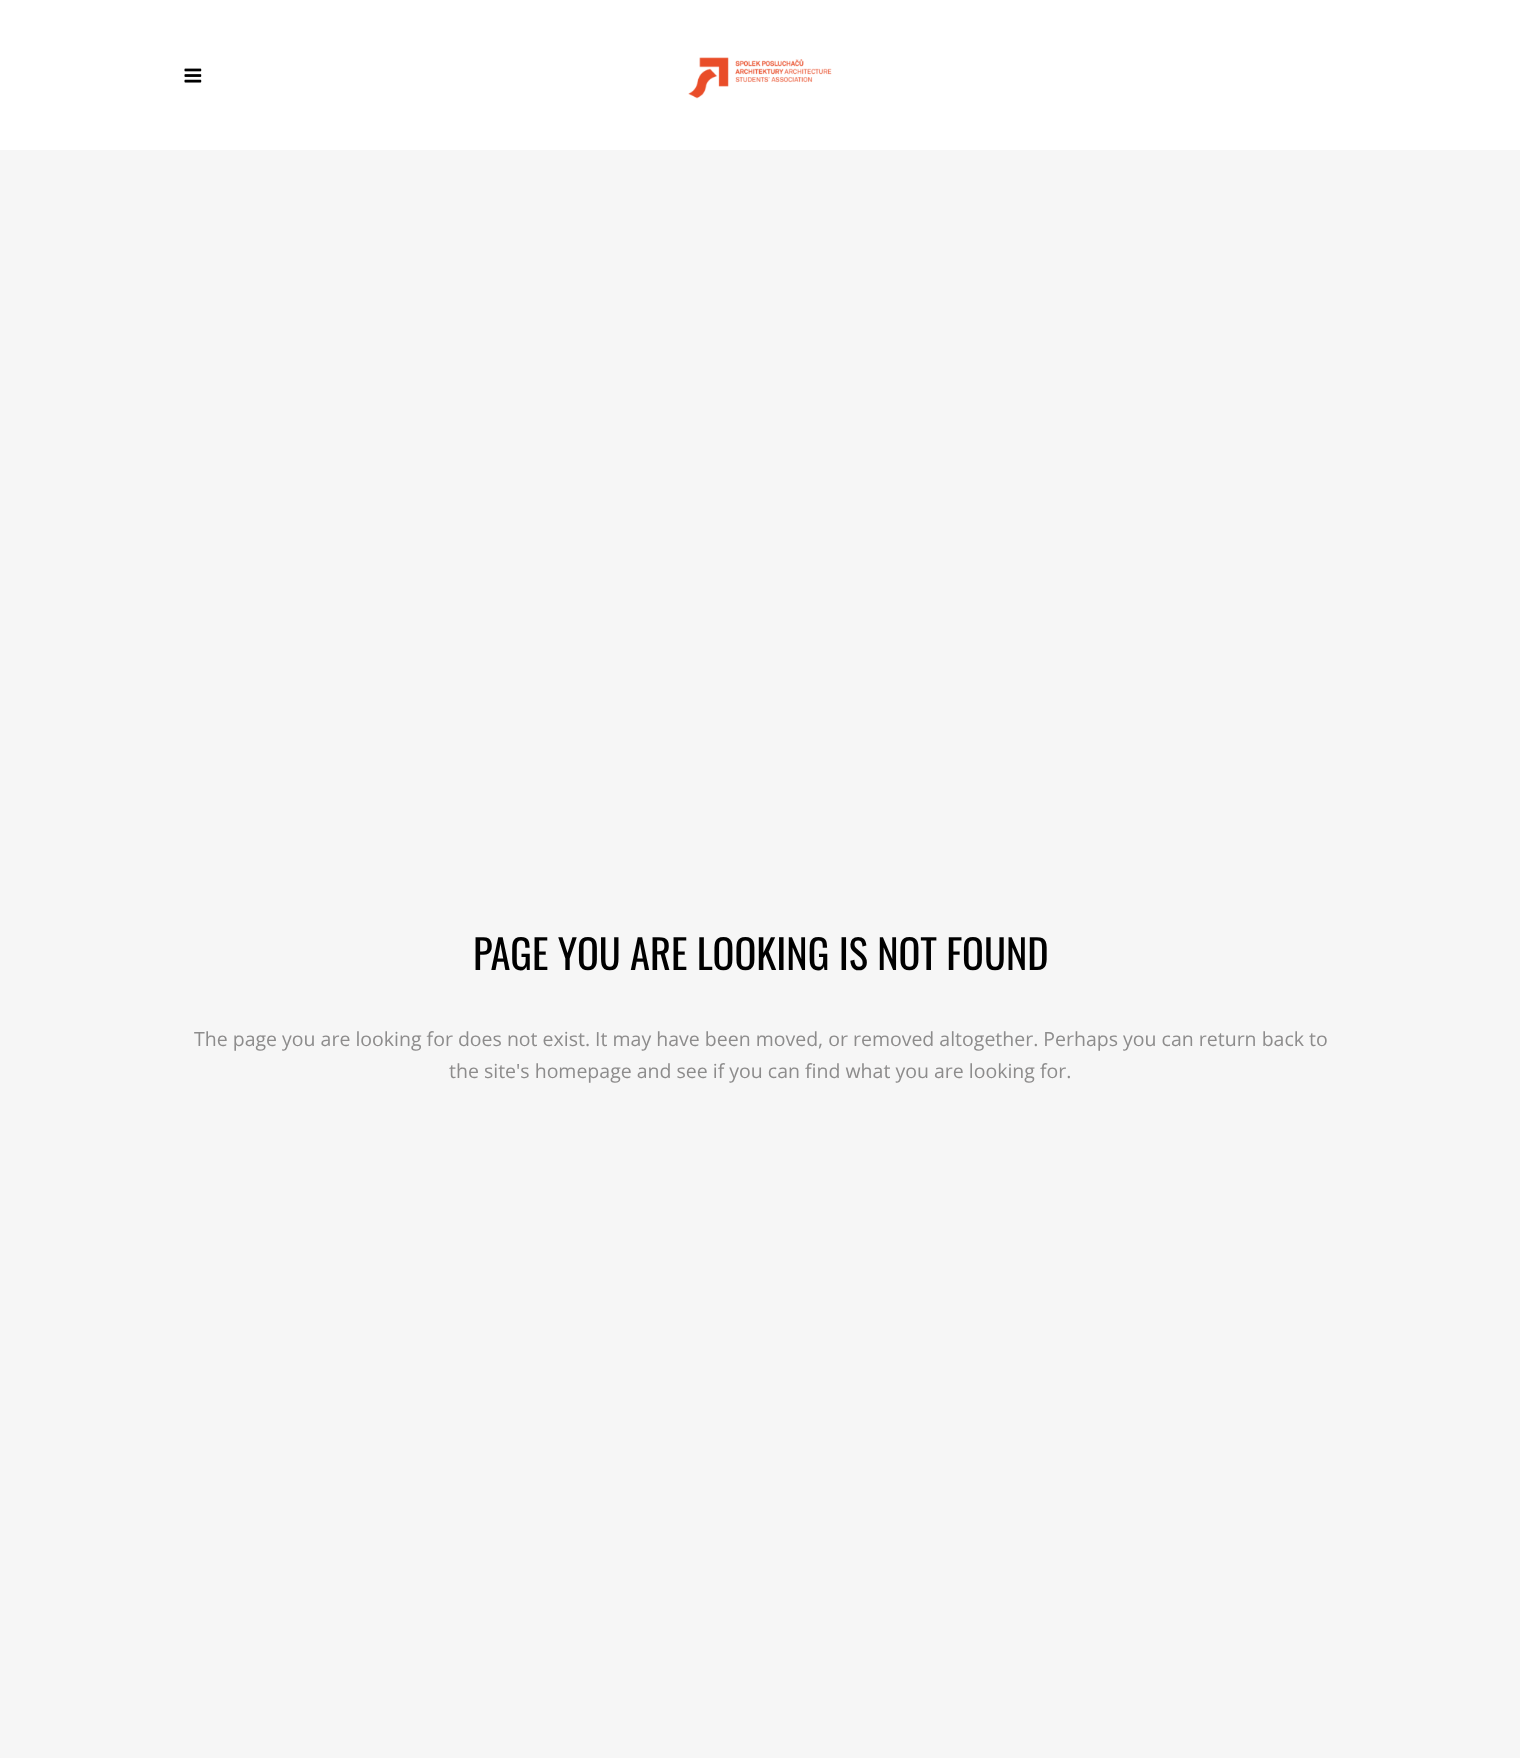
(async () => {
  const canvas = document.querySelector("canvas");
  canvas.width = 1520;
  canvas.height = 1758;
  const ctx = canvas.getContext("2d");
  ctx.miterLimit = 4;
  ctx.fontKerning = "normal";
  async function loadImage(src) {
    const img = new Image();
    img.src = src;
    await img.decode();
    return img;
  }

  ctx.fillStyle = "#f6f6f6";
  ctx.fillRect(0, 0, 1520, 1758);
  ctx.fillStyle = "#ffffff";
  ctx.fillRect(0, 0, 1520, 150);
  ctx.drawImage(await loadImage("img/1.png"), 184, 68, 18, 15);
  ctx.drawImage(await loadImage("img/2.png"), 688, 57, 144, 42);
  ctx.font = "40.5px Oswald";
  ctx.fillStyle = "#000000";
  ctx.fillText("PAGE YOU ARE LOOKING IS NOT FOUND", 473, 970);
  ctx.font = "19.5px Open Sans";
  ctx.fillStyle = "#8d8c8c";
  ctx.fillText("The page you are looking for does not exist. It may have been moved, or removed altogether. Perhaps you can return back to", 194, 1046);
  ctx.fillText("the site's homepage and see if you can find what you are looking for.", 449, 1078);
})();
